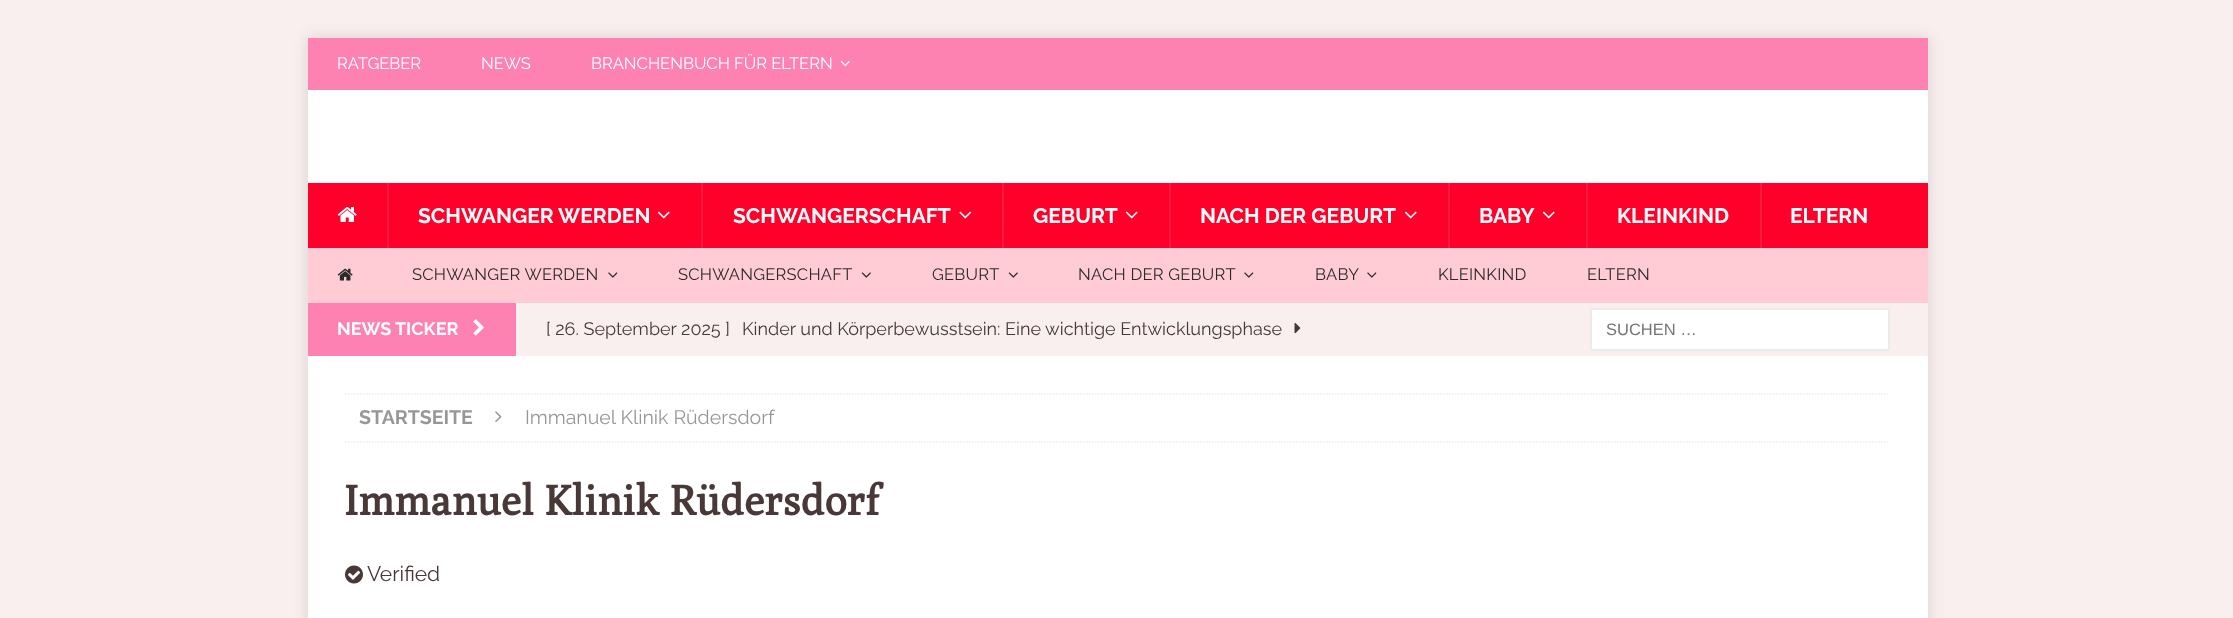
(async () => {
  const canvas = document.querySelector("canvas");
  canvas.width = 2233;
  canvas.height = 618;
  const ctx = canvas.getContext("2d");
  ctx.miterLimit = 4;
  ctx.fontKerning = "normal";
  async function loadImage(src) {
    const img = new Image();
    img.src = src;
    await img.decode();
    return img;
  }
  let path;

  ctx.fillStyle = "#f9efef";
  ctx.fillRect(0, 0, 2233, 618);
  ctx.fillStyle = "rgba(50, 50, 50, 0.17)";
  ctx.filter = "blur(7.5px)";
  ctx.beginPath();
  ctx.rect(308, 38, 1620, 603);
  ctx.fill();
  ctx.filter = "none";
  ctx.fillStyle = "#fd82b1";
  ctx.fillRect(308, 38, 1620, 52);
  ctx.drawImage(await loadImage("img/1.png"), 840, 60, 10, 7);
  ctx.fillStyle = "#ffffff";
  ctx.fillRect(308, 90, 1620, 93);
  ctx.fillStyle = "#ff002a";
  ctx.fillRect(308, 183, 1620, 65);
  ctx.drawImage(await loadImage("img/2.png"), 337, 207, 20, 15);
  ctx.fillStyle = "#ff1a3f";
  ctx.fillRect(387, 183, 2, 65);
  ctx.drawImage(await loadImage("img/3.png"), 657, 211, 13, 8);
  ctx.fillRect(701, 183, 2, 65);
  ctx.drawImage(await loadImage("img/4.png"), 959, 211, 13, 8);
  ctx.fillRect(1002, 183, 2, 65);
  ctx.drawImage(await loadImage("img/3.png"), 1125, 211, 13, 8);
  ctx.fillRect(1169, 183, 2, 65);
  ctx.drawImage(await loadImage("img/3.png"), 1404, 211, 13, 8);
  ctx.fillRect(1448, 183, 2, 65);
  ctx.drawImage(await loadImage("img/3.png"), 1542, 211, 13, 8);
  for (const [x, y, w, h, color] of [
    [1586, 183, 2, 65, "#ff1a3f"],
    [1760, 183, 2, 65, "#ff1a3f"],
    [308, 248, 1620, 55, "#ffccd5"],
  ]) {
    ctx.fillStyle = color;
    ctx.fillRect(x, y, w, h);
  }
  ctx.drawImage(await loadImage("img/5.png"), 337, 268, 16, 13);
  ctx.drawImage(await loadImage("img/6.png"), 608, 272, 10, 6);
  ctx.drawImage(await loadImage("img/7.png"), 861, 272, 10, 6);
  ctx.drawImage(await loadImage("img/7.png"), 1008, 272, 10, 6);
  ctx.drawImage(await loadImage("img/6.png"), 1244, 272, 10, 6);
  ctx.drawImage(await loadImage("img/6.png"), 1367, 272, 10, 6);
  ctx.fillStyle = "#f9efef";
  ctx.fillRect(516, 303, 1412, 53);
  ctx.fillStyle = "#fd82b1";
  ctx.fillRect(308, 303, 208, 53);
  ctx.drawImage(await loadImage("img/8.png"), 473, 319, 11, 17);
  ctx.drawImage(await loadImage("img/9.png"), 1294, 323, 7, 11);
  ctx.fillStyle = "#ffffff";
  ctx.beginPath();
  ctx.rect(1591, 309, 298, 41);
  ctx.fill();
  ctx.strokeStyle = "#ebebeb";
  ctx.lineWidth = 2;
  ctx.stroke();
  ctx.fillRect(308, 356, 1620, 262);
  path = new Path2D("M345 394H1890");
  ctx.lineWidth = 1.5;
  ctx.setLineDash([1.5, 1.5]);
  ctx.stroke(path);
  path = new Path2D("M345 442H1890");
  ctx.stroke(path);
  ctx.drawImage(await loadImage("img/10.png"), 495, 411, 7, 11);
  ctx.drawImage(await loadImage("img/11.png"), 345, 565, 18, 19);
  ctx.font = "16.5px Raleway";
  for (const [text, x, y] of [
    ["RATGEBER", 337, 69],
    ["NEWS", 481, 69],
    ["BRANCHENBUCH FÜR ELTERN", 591, 69],
  ]) {
    ctx.fillText(text, x, y);
  }
  ctx.font = "bold 21px Raleway";
  for (const [text, x, y] of [
    ["SCHWANGER WERDEN", 418, 223],
    ["SCHWANGERSCHAFT", 733, 223],
    ["GEBURT", 1033, 223],
    ["NACH DER GEBURT", 1200, 223],
    ["BABY", 1479, 223],
    ["KLEINKIND", 1617, 223],
    ["ELTERN", 1790, 223],
  ]) {
    ctx.fillText(text, x, y);
  }
  ctx.letterSpacing = "0.25px";
  ctx.font = "16.5px Raleway";
  ctx.fillStyle = "#2a2a2a";
  for (const [text, x, y] of [
    ["SCHWANGER WERDEN", 412, 280],
    ["SCHWANGERSCHAFT", 678, 280],
    ["GEBURT", 932, 280],
    ["NACH DER GEBURT", 1078, 280],
    ["BABY", 1315, 280],
    ["KLEINKIND", 1438, 280],
    ["ELTERN", 1587, 280],
  ]) {
    ctx.fillText(text, x, y);
  }
  ctx.letterSpacing = "0px";
  ctx.font = "bold 18px Raleway";
  ctx.fillStyle = "#ffffff";
  ctx.fillText("NEWS TICKER", 337, 335);
  ctx.font = "18px Raleway";
  ctx.fillStyle = "#493838";
  ctx.fillText("[ 26. September 2025 ]", 546, 335);
  ctx.fillText("Kinder und Körperbewusstsein: Eine wichtige Entwicklungsphase", 742, 335);
  ctx.font = "16.5px Liberation Sans";
  ctx.fillStyle = "#757575";
  ctx.fillText("SUCHEN …", 1606, 335);
  ctx.font = "bold 19.5px Raleway";
  ctx.fillStyle = "#979797";
  ctx.fillText("STARTSEITE", 359, 424);
  ctx.font = "19.5px Raleway";
  ctx.fillText("Immanuel Klinik Rüdersdorf", 525, 424);
  ctx.font = "bold 42px Poly";
  ctx.fillStyle = "#493838";
  ctx.fillText("Immanuel Klinik Rüdersdorf", 344, 515);
  ctx.font = "21px Raleway";
  ctx.fillText("Verified", 367, 581);
})();
